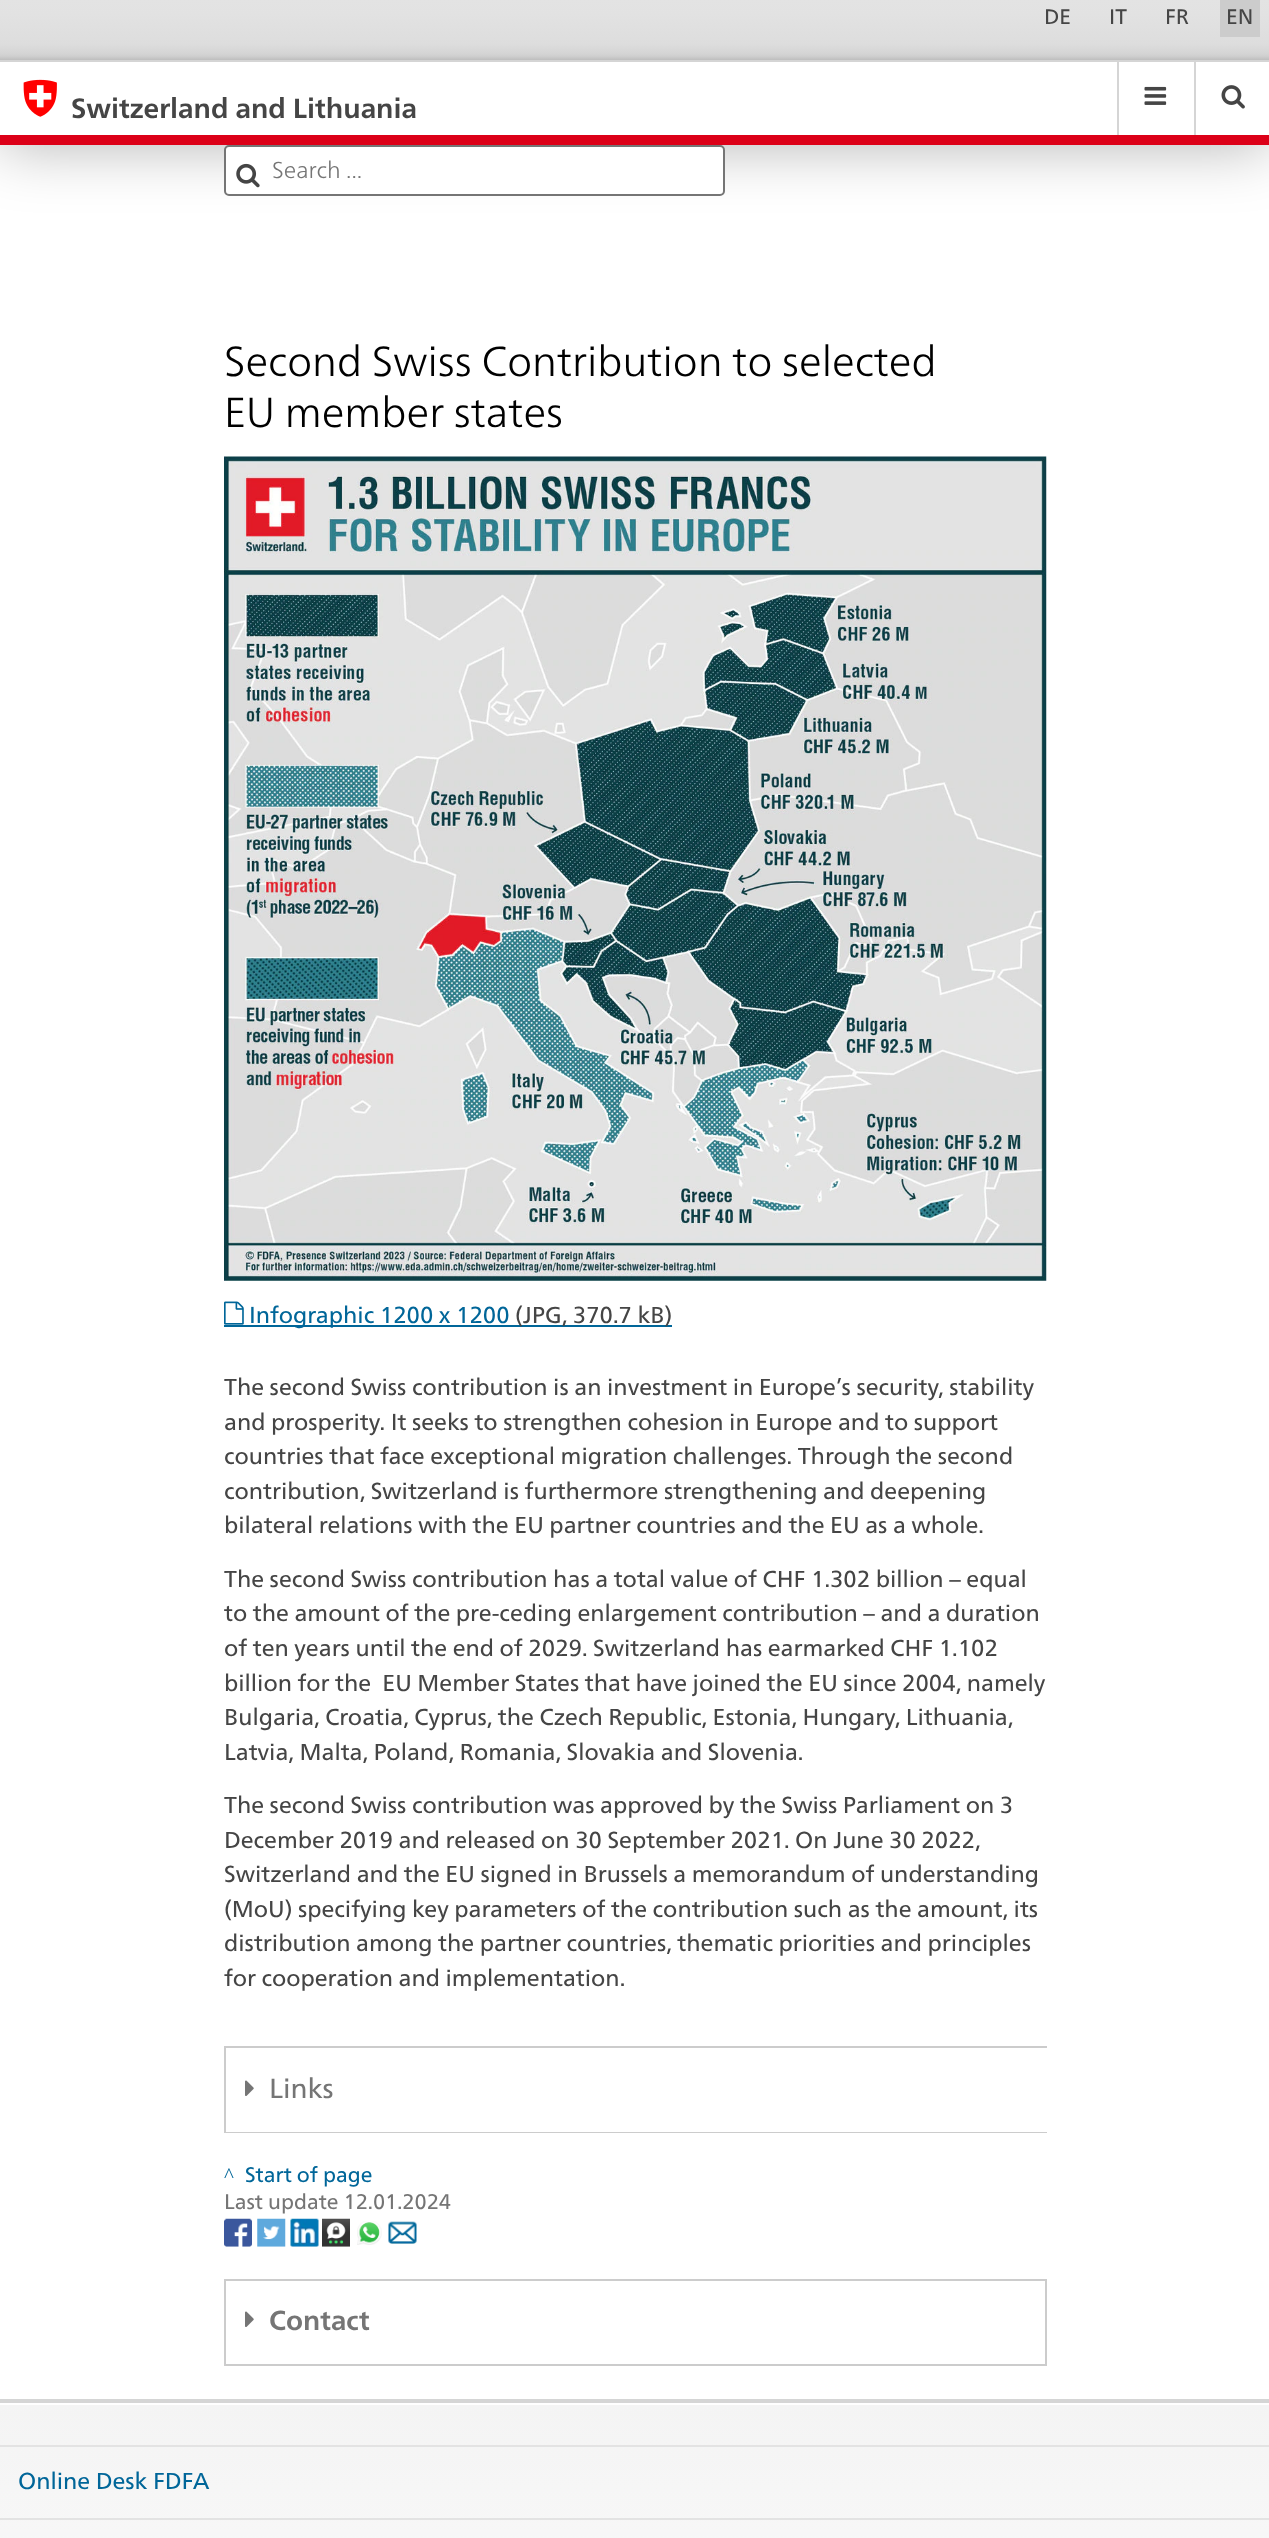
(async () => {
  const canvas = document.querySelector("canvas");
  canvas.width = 1269;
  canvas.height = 2538;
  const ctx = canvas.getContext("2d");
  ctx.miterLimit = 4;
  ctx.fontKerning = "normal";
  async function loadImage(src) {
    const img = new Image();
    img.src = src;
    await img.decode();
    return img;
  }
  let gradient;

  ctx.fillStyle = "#ffffff";
  ctx.fillRect(0, 0, 1269, 2538);
  ctx.fillStyle = "rgba(0, 0, 0, 0.3)";
  ctx.filter = "blur(31.5px)";
  ctx.beginPath();
  ctx.rect(0, 61, 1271, 84);
  ctx.fill();
  ctx.filter = "none";
  gradient = ctx.createLinearGradient(635, -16, 635, 60);
  gradient.addColorStop(0, "#e4e4e4");
  gradient.addColorStop(0.39, "#e2e2e2");
  gradient.addColorStop(0.79, "#dddddd");
  gradient.addColorStop(0.91, "#d5d5d5");
  gradient.addColorStop(0.95, "#cfcfcf");
  gradient.addColorStop(1, "#bebebe");
  ctx.fillStyle = gradient;
  ctx.fillRect(0, 0, 1269, 60);
  for (const [x, y, w, h, color] of [
    [0, 62, 1269, 73, "#ffffff"],
    [1117, 61, 2, 74, "#d5d5d5"],
    [1194, 61, 2, 74, "#d5d5d5"],
    [0, 60, 1269, 2, "#d5d5d5"],
    [1220, 0, 40, 37, "#cccccc"],
    [0, 135, 1269, 10, "#dc0018"],
  ]) {
    ctx.fillStyle = color;
    ctx.fillRect(x, y, w, h);
  }
  ctx.drawImage(await loadImage("img/1.png"), 23, 79, 34, 38);
  ctx.drawImage(await loadImage("img/2.png"), 1144, 86, 23, 19);
  ctx.drawImage(await loadImage("img/3.png"), 1221, 85, 24, 24);
  ctx.fillStyle = "#ffffff";
  ctx.beginPath();
  ctx.roundRect(225, 146, 499, 49, 4);
  ctx.fill();
  ctx.strokeStyle = "#757575";
  ctx.lineWidth = 2;
  ctx.stroke();
  ctx.drawImage(await loadImage("img/4.png"), 236, 163, 24, 25);
  ctx.drawImage(await loadImage("img/5.png"), 224, 456, 823, 825);
  ctx.drawImage(await loadImage("img/6.png"), 224, 1301, 20, 24);
  for (const [x, y, w, h, color] of [
    [224, 1325, 448, 2, "#006699"],
    [224, 2132, 823, 1, "#cccccc"],
    [224, 2046, 823, 2, "#cccccc"],
    [224, 2046, 2, 86, "#cccccc"],
  ]) {
    ctx.fillStyle = color;
    ctx.fillRect(x, y, w, h);
  }
  ctx.drawImage(await loadImage("img/7.png"), 245, 2080, 9, 16);
  ctx.drawImage(await loadImage("img/8.png"), 224, 2218, 28, 29);
  ctx.drawImage(await loadImage("img/9.png"), 257, 2218, 29, 29);
  ctx.drawImage(await loadImage("img/10.png"), 290, 2218, 29, 29);
  ctx.drawImage(await loadImage("img/11.png"), 322, 2218, 28, 29);
  ctx.drawImage(await loadImage("img/12.png"), 357, 2221, 25, 24);
  ctx.drawImage(await loadImage("img/13.png"), 388, 2221, 29, 23);
  for (const [x, y, w, h, color] of [
    [224, 2364, 823, 2, "#cccccc"],
    [224, 2279, 823, 2, "#cccccc"],
    [1045, 2279, 2, 85, "#cccccc"],
    [224, 2279, 2, 85, "#cccccc"],
  ]) {
    ctx.fillStyle = color;
    ctx.fillRect(x, y, w, h);
  }
  ctx.drawImage(await loadImage("img/7.png"), 245, 2311, 9, 16);
  ctx.fillStyle = "#d5d5d5";
  ctx.fillRect(0, 2399, 1269, 4);
  gradient = ctx.createLinearGradient(635, 2403, 635, 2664);
  gradient.addColorStop(0, "#f4f4f4");
  gradient.addColorStop(1, "#fafafa");
  ctx.fillStyle = gradient;
  ctx.fillRect(0, 2405, 1269, 133);
  ctx.fillStyle = "#e3e3e3";
  ctx.fillRect(0, 2445, 1269, 2);
  ctx.fillRect(0, 2518, 1269, 2);
  ctx.font = "21px 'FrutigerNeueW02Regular'";
  ctx.fillStyle = "#454545";
  for (const [text, x, y] of [
    ["DE", 1044, 24],
    ["IT", 1109, 24],
    ["FR", 1165, 24],
    ["EN", 1226, 24],
  ]) {
    ctx.fillText(text, x, y);
  }
  ctx.font = "bold 27.75px 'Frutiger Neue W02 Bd'";
  ctx.fillText("Switzerland and Lithuania", 71, 118);
  ctx.font = "300 23.1px 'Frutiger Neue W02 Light'";
  ctx.fillStyle = "#757575";
  ctx.fillText("Search ...", 272, 178);
  ctx.font = "300 42px 'Frutiger Neue W02 Light'";
  ctx.fillStyle = "#000000";
  ctx.fillText("Second Swiss Contribution to selected", 224, 376);
  ctx.fillText("EU member states", 224, 427);
  ctx.font = "23.1px 'FrutigerNeueW02Regular'";
  ctx.fillStyle = "#006699";
  ctx.fillText("Infographic 1200 x 1200", 249, 1323);
  ctx.fillStyle = "#454545";
  for (const [text, x, y] of [
    ["(JPG, 370.7 kB)", 515, 1323],
    ["The second Swiss contribution is an investment in Europe’s security, stability", 224, 1395],
    ["and prosperity. It seeks to strengthen cohesion in Europe and to support", 224, 1430],
    ["countries that face exceptional migration challenges. Through the second", 224, 1464],
    ["contribution, Switzerland is furthermore strengthening and deepening", 224, 1499],
    ["bilateral relations with the EU partner countries and the EU as a whole.", 224, 1533],
    ["The second Swiss contribution has a total value of CHF 1.302 billion – equal", 224, 1587],
    ["to the amount of the pre-ceding enlargement contribution – and a duration", 224, 1621],
    ["of ten years until the end of 2029. Switzerland has earmarked CHF 1.102", 224, 1656],
    ["billion for the  EU Member States that have joined the EU since 2004, namely", 224, 1691],
    ["Bulgaria, Croatia, Cyprus, the Czech Republic, Estonia, Hungary, Lithuania,", 224, 1725],
    ["Latvia, Malta, Poland, Romania, Slovakia and Slovenia.", 224, 1760],
    ["The second Swiss contribution was approved by the Swiss Parliament on 3", 224, 1813],
    ["December 2019 and released on 30 September 2021. On June 30 2022,", 224, 1848],
    ["Switzerland and the EU signed in Brussels a memorandum of understanding", 224, 1882],
    ["(MoU) specifying key parameters of the contribution such as the amount, its", 224, 1917],
    ["distribution among the partner countries, thematic priorities and principles", 224, 1951],
    ["for cooperation and implementation.", 224, 1986],
  ]) {
    ctx.fillText(text, x, y);
  }
  ctx.font = "27.5px 'FrutigerNeueW02Regular'";
  ctx.fillStyle = "#757575";
  ctx.fillText("Links", 269, 2098);
  ctx.font = "21px Liberation Serif";
  ctx.fillStyle = "#006699";
  ctx.fillText("^", 224, 2182);
  ctx.font = "21px 'FrutigerNeueW02Regular'";
  ctx.fillText("Start of page", 245, 2182);
  ctx.fillStyle = "#757575";
  ctx.fillText("Last update 12.01.2024", 224, 2209);
  ctx.font = "bold 27.5px 'Frutiger Neue W02 Bd'";
  ctx.fillText("Contact", 269, 2330);
  ctx.font = "23.1px 'FrutigerNeueW02Regular'";
  ctx.fillStyle = "#006699";
  ctx.fillText("Online Desk FDFA", 18, 2489);
})();
